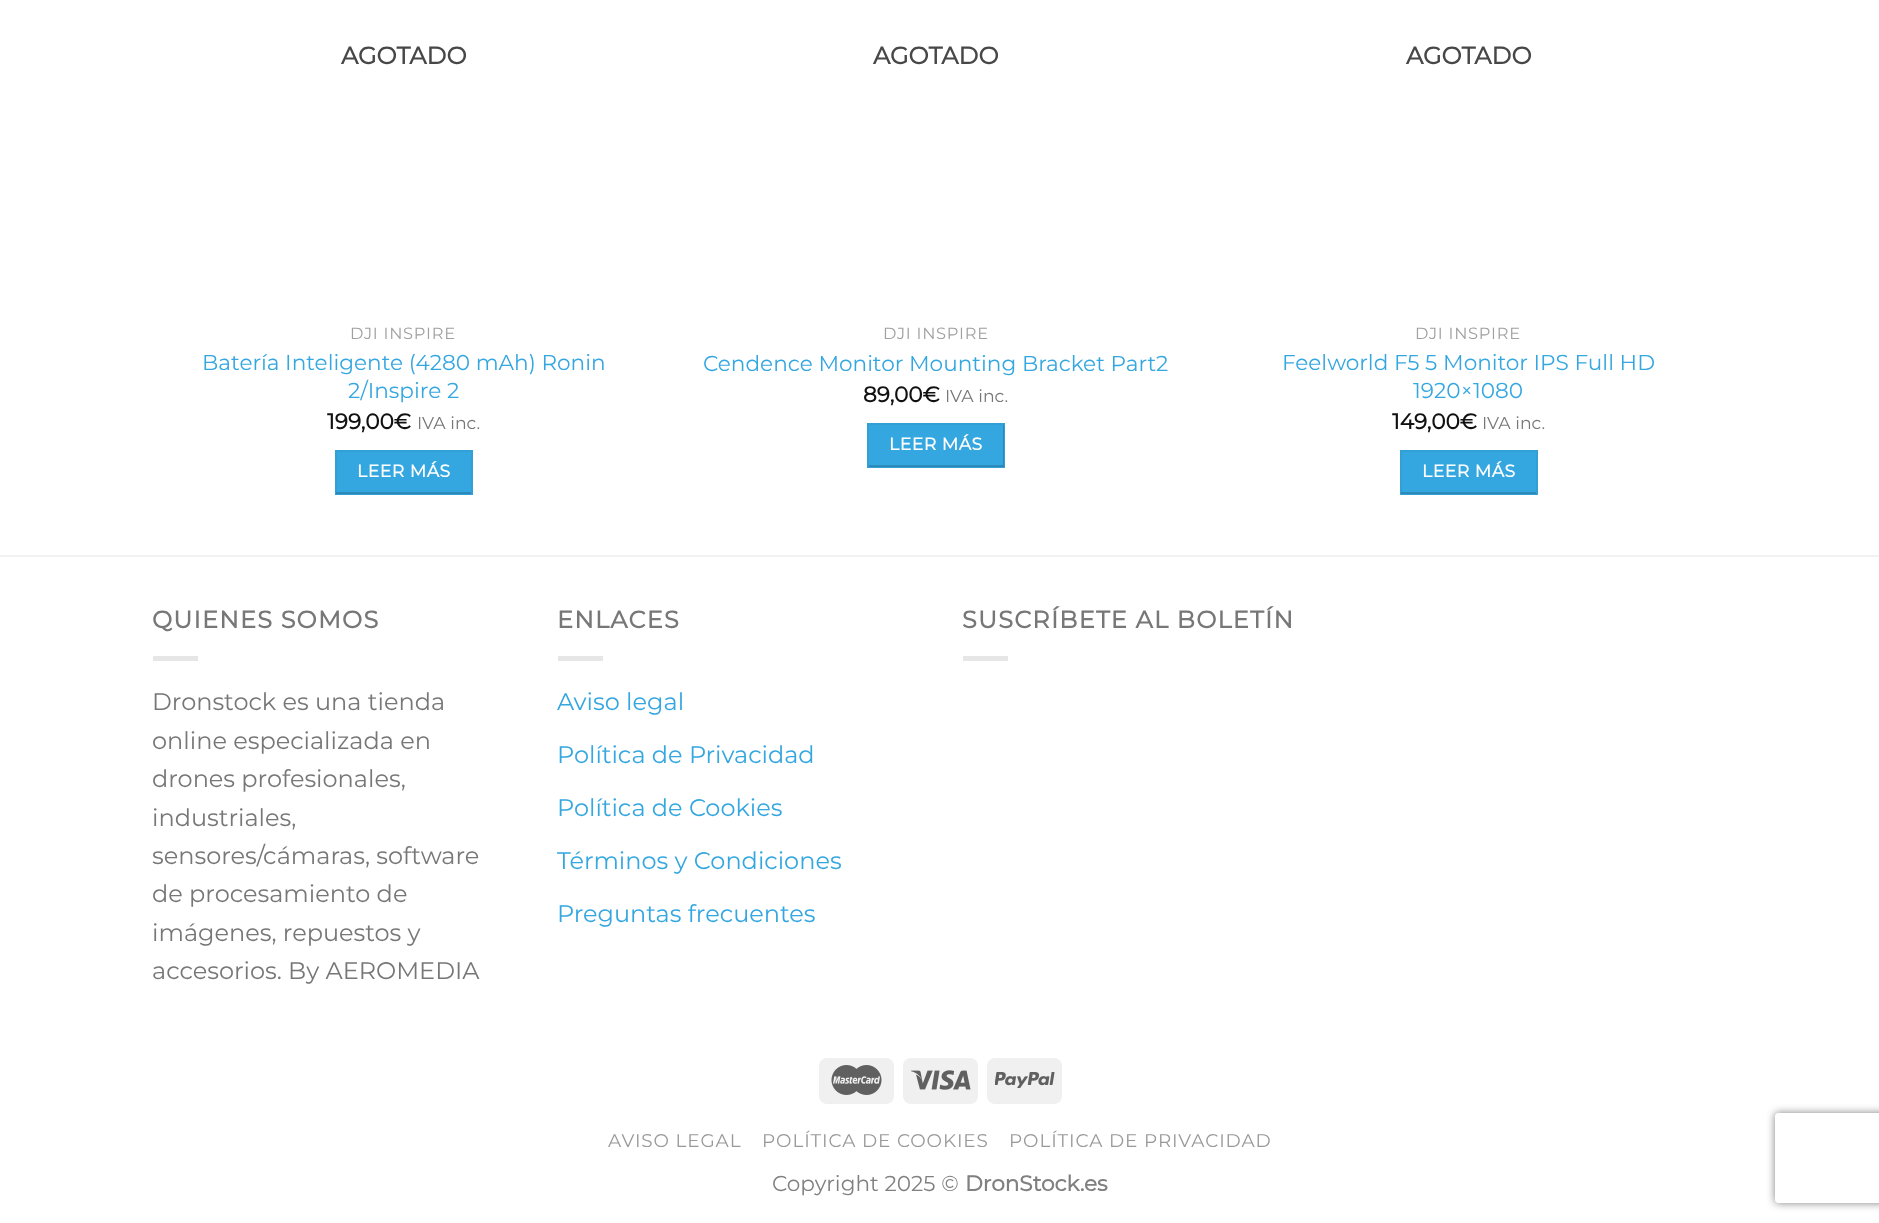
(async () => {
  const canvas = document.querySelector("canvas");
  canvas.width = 1879;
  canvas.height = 1223;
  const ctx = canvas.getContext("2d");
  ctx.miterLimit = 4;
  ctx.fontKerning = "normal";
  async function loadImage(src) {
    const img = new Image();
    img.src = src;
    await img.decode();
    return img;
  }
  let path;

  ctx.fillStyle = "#ffffff";
  ctx.fillRect(0, 0, 1879, 1223);
  ctx.fillStyle = "#35a7e0";
  ctx.beginPath();
  ctx.rect(336, 451, 136, 43);
  ctx.fill();
  ctx.strokeStyle = "#329fd5";
  ctx.lineWidth = 2;
  ctx.stroke();
  ctx.save();
  ctx.beginPath();
  ctx.rect(336, 452, 135, 42);
  ctx.clip();
  ctx.fillStyle = "rgba(0, 0, 0, 0.15)";
  path = new Path2D("M188 303H620V642H188ZM336 450H471V492H336Z");
  ctx.fill(path, "evenodd");
  ctx.restore();
  ctx.beginPath();
  ctx.rect(868, 424, 136, 43);
  ctx.fill();
  ctx.stroke();
  ctx.beginPath();
  ctx.rect(1401, 451, 136, 43);
  ctx.fill();
  ctx.stroke();
  ctx.save();
  ctx.beginPath();
  ctx.rect(1401, 452, 135, 42);
  ctx.clip();
  ctx.fillStyle = "rgba(0, 0, 0, 0.15)";
  path = new Path2D("M1252 303H1684V642H1252ZM1401 450H1536V492H1401Z");
  ctx.fill(path, "evenodd");
  ctx.restore();
  for (const [x, y, w, h, color] of [
    [0, 555, 1879, 2, "#f2f2f2"],
    [153, 656, 45, 5, "#e6e6e6"],
    [558, 656, 45, 5, "#e6e6e6"],
    [963, 656, 45, 5, "#e6e6e6"],
  ]) {
    ctx.fillStyle = color;
    ctx.fillRect(x, y, w, h);
  }
  ctx.fillStyle = "#f0f0f0";
  ctx.beginPath();
  ctx.roundRect(819, 1058, 75, 46, 8);
  ctx.fill();
  ctx.drawImage(await loadImage("img/1.png"), 831, 1065, 51, 30);
  ctx.beginPath();
  ctx.roundRect(903, 1058, 75, 46, 8);
  ctx.fill();
  ctx.drawImage(await loadImage("img/2.png"), 911, 1070, 60, 20);
  ctx.beginPath();
  ctx.roundRect(987, 1058, 75, 46, 8);
  ctx.fill();
  ctx.drawImage(await loadImage("img/3.png"), 995, 1072, 60, 16);
  ctx.save();
  path = new Path2D("M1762 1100H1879V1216H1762ZM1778 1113H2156C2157.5 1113 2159 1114.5 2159 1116V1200C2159 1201.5 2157.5 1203 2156 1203H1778C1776.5 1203 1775 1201.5 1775 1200V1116C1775 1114.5 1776.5 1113 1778 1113Z");
  ctx.clip(path, "evenodd");
  ctx.fillStyle = "#808080";
  ctx.filter = "blur(4px)";
  ctx.beginPath();
  ctx.roundRect(1775, 1113, 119, 90, 3);
  ctx.fill();
  ctx.filter = "none";
  ctx.restore();
  ctx.font = "bold 24px Montserrat";
  ctx.fillStyle = "#474747";
  ctx.fillText("AGOTADO", 341, 64);
  ctx.letterSpacing = "0.75px";
  ctx.font = "100 16.25px Montserrat";
  ctx.fillStyle = "#a0a0a0";
  ctx.fillText("DJI INSPIRE", 350, 339);
  ctx.letterSpacing = "0px";
  ctx.font = "100 21.6px Montserrat";
  ctx.fillStyle = "#35a7e0";
  ctx.fillText("Batería Inteligente (4280 mAh) Ronin", 202, 370);
  ctx.fillText("2/Inspire 2", 348, 398);
  ctx.font = "bold 21.6px Montserrat";
  ctx.fillStyle = "#111111";
  ctx.fillText("199,00€", 327, 429);
  ctx.font = "100 17.25px Montserrat";
  ctx.fillStyle = "#777777";
  ctx.fillText("IVA inc.", 417, 429);
  ctx.letterSpacing = "0.5px";
  ctx.font = "bold 17.25px Montserrat";
  ctx.fillStyle = "#ffffff";
  ctx.fillText("LEER MÁS", 357, 477);
  ctx.letterSpacing = "0px";
  ctx.font = "bold 24px Montserrat";
  ctx.fillStyle = "#474747";
  ctx.fillText("AGOTADO", 873, 64);
  ctx.letterSpacing = "0.75px";
  ctx.font = "100 16.25px Montserrat";
  ctx.fillStyle = "#a0a0a0";
  ctx.fillText("DJI INSPIRE", 883, 339);
  ctx.letterSpacing = "0px";
  ctx.font = "100 21.6px Montserrat";
  ctx.fillStyle = "#35a7e0";
  ctx.fillText("Cendence Monitor Mounting Bracket Part2", 703, 371);
  ctx.font = "bold 21.6px Montserrat";
  ctx.fillStyle = "#111111";
  ctx.fillText("89,00€", 863, 402);
  ctx.font = "100 17.25px Montserrat";
  ctx.fillStyle = "#777777";
  ctx.fillText("IVA inc.", 945, 402);
  ctx.letterSpacing = "0.5px";
  ctx.font = "bold 17.25px Montserrat";
  ctx.fillStyle = "#ffffff";
  ctx.fillText("LEER MÁS", 889, 450);
  ctx.save();
  ctx.beginPath();
  ctx.rect(869, 425, 135, 42);
  ctx.clip();
  ctx.fillStyle = "rgba(0, 0, 0, 0.15)";
  path = new Path2D("M720 276H1152V615H720ZM868 423H1003V465H868Z");
  ctx.fill(path, "evenodd");
  ctx.restore();
  ctx.letterSpacing = "0px";
  ctx.font = "bold 24px Montserrat";
  ctx.fillStyle = "#474747";
  ctx.fillText("AGOTADO", 1406, 64);
  ctx.letterSpacing = "0.75px";
  ctx.font = "100 16.25px Montserrat";
  ctx.fillStyle = "#a0a0a0";
  ctx.fillText("DJI INSPIRE", 1415, 339);
  ctx.letterSpacing = "0px";
  ctx.font = "100 21.6px Montserrat";
  ctx.fillStyle = "#35a7e0";
  ctx.fillText("Feelworld F5 5 Monitor IPS Full HD", 1282, 370);
  ctx.fillText("1920×1080", 1413, 398);
  ctx.font = "bold 21.6px Montserrat";
  ctx.fillStyle = "#111111";
  ctx.fillText("149,00€", 1392, 429);
  ctx.font = "100 17.25px Montserrat";
  ctx.fillStyle = "#777777";
  ctx.fillText("IVA inc.", 1482, 429);
  ctx.letterSpacing = "0.5px";
  ctx.font = "bold 17.25px Montserrat";
  ctx.fillStyle = "#ffffff";
  ctx.fillText("LEER MÁS", 1422, 477);
  ctx.letterSpacing = "1.2px";
  ctx.font = "bold 24px Montserrat";
  ctx.fillStyle = "#777777";
  ctx.fillText("QUIENES SOMOS", 152, 628);
  ctx.letterSpacing = "0px";
  ctx.font = "100 24px Montserrat";
  for (const [text, x, y] of [
    ["Dronstock es una tienda", 152, 710],
    ["online especializada en", 152, 749],
    ["drones profesionales,", 152, 787],
    ["industriales,", 152, 826],
    ["sensores/cámaras, software", 152, 864],
    ["de procesamiento de", 152, 902],
    ["imágenes, repuestos y", 152, 941],
    ["accesorios. By AEROMEDIA", 152, 979],
  ]) {
    ctx.fillText(text, x, y);
  }
  ctx.letterSpacing = "1.2px";
  ctx.font = "bold 24px Montserrat";
  ctx.fillText("ENLACES", 557, 628);
  ctx.letterSpacing = "0px";
  ctx.font = "100 24px Montserrat";
  ctx.fillStyle = "#35a7e0";
  for (const [text, x, y] of [
    ["Aviso legal", 557, 710],
    ["Política de Privacidad", 557, 763],
    ["Política de Cookies", 557, 816],
    ["Términos y Condiciones", 557, 869],
    ["Preguntas frecuentes", 557, 922],
  ]) {
    ctx.fillText(text, x, y);
  }
  ctx.letterSpacing = "1.2px";
  ctx.font = "bold 24px Montserrat";
  ctx.fillStyle = "#777777";
  ctx.fillText("SUSCRÍBETE AL BOLETÍN", 962, 628);
  ctx.letterSpacing = "0.9px";
  ctx.font = "100 18.4px Montserrat";
  ctx.fillStyle = "#999999";
  for (const [text, x, y] of [
    ["AVISO LEGAL", 608, 1147],
    ["POLÍTICA DE COOKIES", 762, 1147],
    ["POLÍTICA DE PRIVACIDAD", 1009, 1147],
  ]) {
    ctx.fillText(text, x, y);
  }
  ctx.letterSpacing = "0px";
  ctx.font = "100 21.6px Montserrat";
  ctx.fillStyle = "#808080";
  ctx.fillText("Copyright 2025 ©", 772, 1191);
  ctx.font = "bold 21.6px Montserrat";
  ctx.fillText("DronStock.es", 965, 1191);
})();
